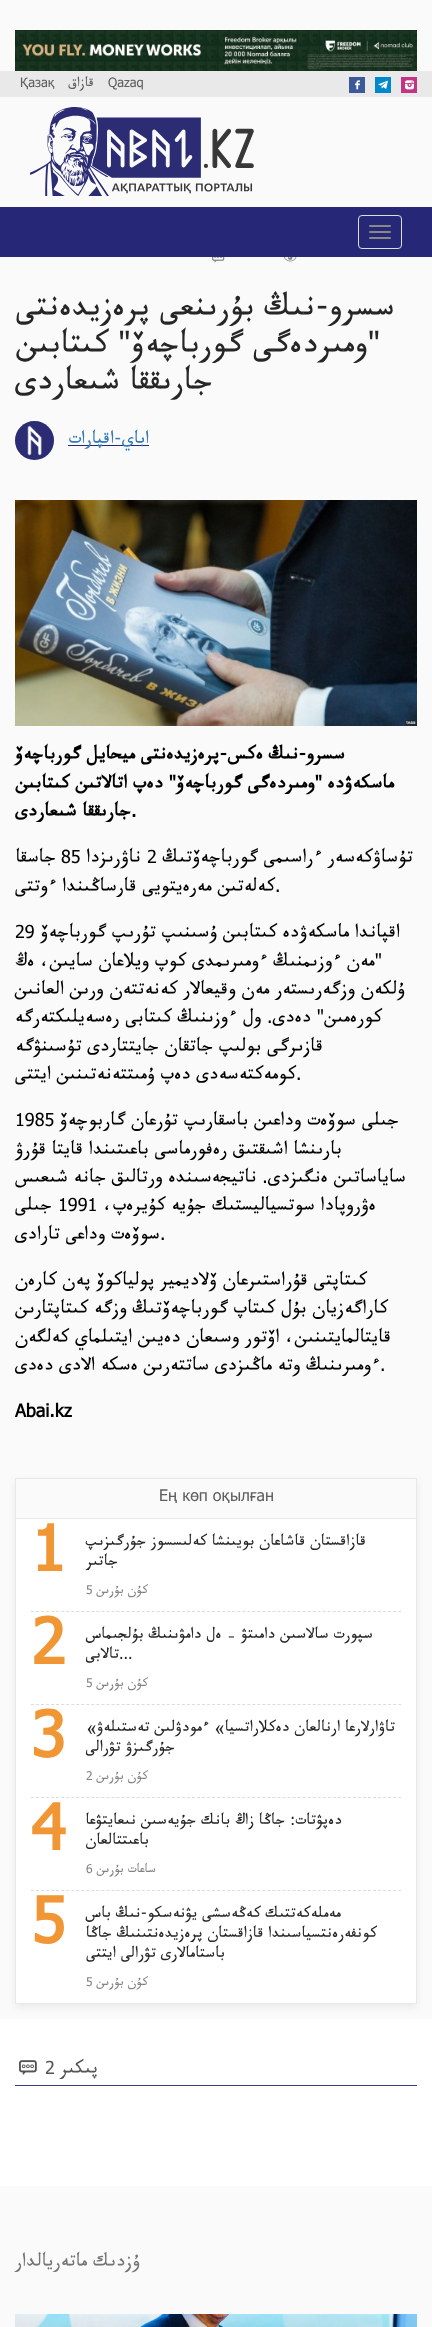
(async () => {
  const canvas = document.querySelector("canvas");
  canvas.width = 432;
  canvas.height = 2327;
  const ctx = canvas.getContext("2d");
  ctx.miterLimit = 4;
  ctx.fontKerning = "normal";
  async function loadImage(src) {
    const img = new Image();
    img.src = src;
    await img.decode();
    return img;
  }
  let path;

  ctx.fillStyle = "#fafafa";
  ctx.fillRect(0, 0, 432, 2327);
  ctx.drawImage(await loadImage("img/1.png"), 15, 30, 402, 41);
  ctx.fillStyle = "#e9e9e9";
  ctx.fillRect(0, 71, 432, 26);
  ctx.fillStyle = "#c13584";
  ctx.fillRect(401, 77, 16, 16);
  ctx.drawImage(await loadImage("img/2.png"), 405, 80, 9, 10);
  ctx.fillStyle = "#0088cc";
  ctx.fillRect(375, 77, 16, 16);
  ctx.drawImage(await loadImage("img/3.png"), 378, 80, 10, 9);
  ctx.fillStyle = "#3b5998";
  ctx.fillRect(349, 77, 16, 16);
  ctx.drawImage(await loadImage("img/4.png"), 355, 80, 5, 10);
  ctx.drawImage(await loadImage("img/5.png"), 30, 107, 224, 89);
  ctx.fillStyle = "#262877";
  ctx.fillRect(0, 207, 432, 50);
  ctx.beginPath();
  ctx.roundRect(358.5, 215.5, 43, 33, 3.5);
  ctx.strokeStyle = "#dddddd";
  ctx.stroke();
  ctx.fillStyle = "#888888";
  ctx.beginPath();
  ctx.roundRect(369, 225, 22, 2, 1);
  ctx.fill();
  ctx.beginPath();
  ctx.roundRect(369, 231, 22, 2, 1);
  ctx.fill();
  ctx.beginPath();
  ctx.roundRect(369, 237, 22, 2, 1);
  ctx.fill();
  ctx.drawImage(await loadImage("img/6.png"), 284, 257, 13, 5);
  ctx.drawImage(await loadImage("img/7.png"), 212, 257, 13, 6);
  ctx.fillStyle = "#dddddd";
  ctx.beginPath();
  ctx.arc(34.5, 440.5, 19.5, 0, Math.PI * 2);
  ctx.fill();
  ctx.fillStyle = "#262877";
  ctx.fillRect(68, 445, 81, 1);
  ctx.drawImage(await loadImage("img/8.png"), 15, 421, 39, 39);
  ctx.drawImage(await loadImage("img/9.png"), 15, 500, 402, 226);
  ctx.save();
  path = new Path2D("M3 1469H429V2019H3ZM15 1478H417V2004H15Z");
  ctx.clip(path, "evenodd");
  ctx.fillStyle = "rgba(212, 212, 212, 0.41)";
  ctx.filter = "blur(3.5px)";
  ctx.beginPath();
  ctx.rect(15, 1481, 402, 526);
  ctx.fill();
  ctx.filter = "none";
  ctx.restore();
  ctx.strokeStyle = "#e8e8e8";
  ctx.strokeRect(15.5, 1478.5, 401, 525);
  ctx.fillStyle = "#e8e8e8";
  ctx.fillRect(16, 1518, 400, 1);
  ctx.fillStyle = "#ffffff";
  ctx.fillRect(16, 1519, 400, 484);
  path = new Path2D("M31 1611.5H401");
  ctx.strokeStyle = "#dddddd";
  ctx.setLineDash([3, 2.03]);
  ctx.stroke(path);
  path = new Path2D("M31 1704.5H401");
  ctx.stroke(path);
  path = new Path2D("M31 1797.5H401");
  ctx.stroke(path);
  path = new Path2D("M31 1890.5H401");
  ctx.stroke(path);
  ctx.fillRect(0, 2019, 432, 167);
  ctx.fillStyle = "#3a3c84";
  ctx.fillRect(15, 2085, 402, 1);
  ctx.drawImage(await loadImage("img/10.png"), 19, 2060, 18, 15);
  ctx.drawImage(await loadImage("img/11.png"), 15, 2314, 402, 13);
  ctx.font = "13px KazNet";
  ctx.fillStyle = "#5f5f5f";
  ctx.fillText("Qazaq", 108, 87);
  ctx.direction = "rtl";
  ctx.fillText("قازاق", 94, 87);
  ctx.direction = "ltr";
  ctx.fillText("Қазақ", 20, 87);
  ctx.direction = "rtl";
  ctx.font = "30.75px KazNet";
  ctx.fillStyle = "#262626";
  for (const [text, x, y] of [
    ["سسرو-نىڭ بۇرىنعى پرەزيدەنتى", 395, 317],
    ["\"ومىردەگى گورباچەۆ\" كىتابىن", 380, 354],
    ["جارىققا شىعاردى", 213, 391],
  ]) {
    ctx.fillText(text, x, y);
  }
  ctx.font = "17px KazNet";
  ctx.fillStyle = "#337ab7";
  ctx.fillText("اباي-اقپارات", 149, 444);
  ctx.font = "bold 18px KazNet";
  ctx.fillStyle = "#000000";
  ctx.fillText("سسرو-نىڭ ەكس-پرەزيدەنتى ميحايل گورباچەۆ", 345, 760);
  ctx.fillText("ماسكەۋدە \"ومىردەگى گورباچەۆ\" دەپ اتالاتىن كىتابىن", 394, 789);
  ctx.direction = "ltr";
  ctx.fillText(".", 131, 817);
  ctx.direction = "rtl";
  ctx.fillText("جارىققا شىعاردى", 131, 817);
  ctx.font = "18px KazNet";
  ctx.fillText("تۇساۋكەسەر ءراسىمى گورباچەۆتىڭ", 413, 863);
  ctx.direction = "ltr";
  ctx.fillText("2", 147, 863);
  ctx.direction = "rtl";
  ctx.fillText("ناۋرىزدا", 141, 863);
  ctx.direction = "ltr";
  ctx.fillText("85", 61, 863);
  ctx.direction = "rtl";
  ctx.fillText("جاسقا", 56, 863);
  ctx.direction = "ltr";
  ctx.fillText(".", 275, 892);
  ctx.direction = "rtl";
  ctx.fillText("كەلەتىن مەرەيتويى قارساڭىندا ءوتتى", 275, 892);
  ctx.fillText("اقپاندا ماسكەۋدە كىتابىن ۇسىنىپ تۇرىپ گورباچەۆ", 400, 938);
  ctx.direction = "ltr";
  ctx.fillText("29", 15, 938);
  ctx.direction = "rtl";
  for (const [text, x, y] of [
    ["\"مەن ءوزىمنىڭ ءومىرىمدى كوپ ويلاعان سايىن، ەڭ", 382, 967],
    ["ۇلكەن وزگەرىستەر مەن وقيعالار كەنەتتەن ورىن العانىن", 405, 995],
    ["كورەمىن\" دەدى. ول ءوزىنىڭ كىتابى رەسەيلىكتەرگە", 382, 1023],
    ["قازىرگى بولىپ جاتقان جايتتاردى تۇسىنۋگە", 323, 1052],
  ]) {
    ctx.fillText(text, x, y);
  }
  ctx.direction = "ltr";
  ctx.fillText(".", 296, 1080);
  ctx.direction = "rtl";
  ctx.fillText("كومەكتەسەدى دەپ ۇمىتتەنەتىنىن ايتتى", 296, 1080);
  ctx.fillText("جىلى سوۆەت وداعىن باسقارىپ تۇرعان گاربوچەۆ", 399, 1126);
  ctx.direction = "ltr";
  ctx.fillText("1985", 15, 1126);
  ctx.direction = "rtl";
  for (const [text, x, y] of [
    ["بارىنشا اشىقتىق رەفورماسى باعىتىندا قايتا قۇرۋ", 342, 1155],
    ["ساياساتىن ەنگىزدى. ناتيجەسىندە ورتالىق جانە شىعىس", 406, 1183],
    ["ەۋروپادا سوتسياليستىك جۇيە كۇيرەپ،", 376, 1211],
  ]) {
    ctx.fillText(text, x, y);
  }
  ctx.direction = "ltr";
  ctx.fillText("1991", 58, 1211);
  ctx.direction = "rtl";
  ctx.fillText("جىلى", 52, 1211);
  ctx.direction = "ltr";
  ctx.fillText(".", 160, 1240);
  ctx.direction = "rtl";
  for (const [text, x, y] of [
    ["سوۆەت وداعى تارادى", 160, 1240],
    ["كىتاپتى قۇراستىرعان ۆلاديمير پولياكوۆ پەن كارەن", 367, 1286],
    ["كاراگەزيان بۇل كىتاپ گورباچەۆتىڭ وزگە كىتاپتارىن", 388, 1314],
    ["قايتالمايتىنىن، اۆتور وسىعان دەيىن ايتىلماي كەلگەن", 391, 1343],
  ]) {
    ctx.fillText(text, x, y);
  }
  ctx.direction = "ltr";
  ctx.fillText(".", 380, 1371);
  ctx.direction = "rtl";
  ctx.fillText("ءومىرىنىڭ وتە ماڭىزدى ساتتەرىن ەسكە الادى دەدى", 380, 1371);
  ctx.direction = "ltr";
  ctx.font = "bold 18px KazNet";
  ctx.fillText("Abai.kz", 15, 1417);
  ctx.font = "16px KazNet";
  ctx.fillStyle = "#5f5f5f";
  ctx.fillText("Ең көп оқылған", 159, 1501);
  ctx.direction = "rtl";
  ctx.font = "15px KazNet";
  ctx.fillStyle = "#262626";
  ctx.fillText("قازاقستان قاشاعان بويىنشا كەلىسسوز جۇرگىزىپ", 366, 1546);
  ctx.fillText("جاتىر", 118, 1566);
  ctx.font = "12px KazNet";
  ctx.fillStyle = "#838383";
  ctx.fillText("كۇن بۇرىن", 148, 1594);
  ctx.direction = "ltr";
  ctx.fillText("5", 86, 1594);
  ctx.font = "bold 63px KazNet";
  ctx.fillStyle = "#f19634";
  ctx.fillText("1", 31, 1571);
  ctx.direction = "rtl";
  ctx.font = "15px KazNet";
  ctx.fillStyle = "#262626";
  ctx.fillText("سپورت سالاسىن دامىتۋ – ەل دامۋىنىڭ بۇلجىماس", 373, 1639);
  ctx.direction = "ltr";
  ctx.fillText("...", 119, 1659);
  ctx.direction = "rtl";
  ctx.fillText("تالابى", 119, 1659);
  ctx.font = "12px KazNet";
  ctx.fillStyle = "#838383";
  ctx.fillText("كۇن بۇرىن", 148, 1687);
  ctx.direction = "ltr";
  ctx.fillText("5", 86, 1687);
  ctx.font = "bold 63px KazNet";
  ctx.fillStyle = "#f19634";
  ctx.fillText("2", 31, 1664);
  ctx.font = "15px KazNet";
  ctx.fillStyle = "#262626";
  ctx.fillText("«", 86, 1732);
  ctx.direction = "rtl";
  ctx.fillText("تاۋارلارعا ارنالعان دەكلاراتسيا» ءمودۋلىن تەستىلەۋ", 395, 1732);
  ctx.fillText("جۇرگىزۋ تۋرالى", 175, 1752);
  ctx.font = "12px KazNet";
  ctx.fillStyle = "#838383";
  ctx.fillText("كۇن بۇرىن", 148, 1780);
  ctx.direction = "ltr";
  ctx.fillText("2", 86, 1780);
  ctx.font = "bold 63px KazNet";
  ctx.fillStyle = "#f19634";
  ctx.fillText("3", 31, 1757);
  ctx.direction = "rtl";
  ctx.font = "15px KazNet";
  ctx.fillStyle = "#262626";
  ctx.fillText("دەپۋتات: جاڭا زاڭ بانك جۇيەسىن نىعايتۋعا", 342, 1825);
  ctx.fillText("باعىتتالعان", 149, 1845);
  ctx.font = "12px KazNet";
  ctx.fillStyle = "#838383";
  ctx.fillText("ساعات بۇرىن", 156, 1873);
  ctx.direction = "ltr";
  ctx.fillText("6", 86, 1873);
  ctx.font = "bold 63px KazNet";
  ctx.fillStyle = "#f19634";
  ctx.fillText("4", 31, 1850);
  ctx.direction = "rtl";
  ctx.font = "15px KazNet";
  ctx.fillStyle = "#262626";
  for (const [text, x, y] of [
    ["مەملەكەتتىك كەڭەسشى يۋنەسكو-نىڭ باس", 341, 1918],
    ["كونفەرەنتسياسىندا قازاقستان پرەزيدەنتىنىڭ جاڭا", 377, 1938],
    ["باستامالارى تۋرالى ايتتى", 225, 1958],
  ]) {
    ctx.fillText(text, x, y);
  }
  ctx.font = "12px KazNet";
  ctx.fillStyle = "#838383";
  ctx.fillText("كۇن بۇرىن", 148, 1986);
  ctx.direction = "ltr";
  ctx.fillText("5", 86, 1986);
  ctx.font = "bold 63px KazNet";
  ctx.fillStyle = "#f19634";
  ctx.fillText("5", 31, 1943);
  ctx.direction = "rtl";
  ctx.font = "18px KazNet";
  ctx.fillStyle = "#545454";
  ctx.fillText("پىكىر", 98, 2074);
  ctx.direction = "ltr";
  ctx.fillText("2", 45, 2074);
  ctx.direction = "rtl";
  ctx.fillStyle = "#747474";
  ctx.fillText("ۇزدىك ماتەريالدار", 140, 2267);
})();
